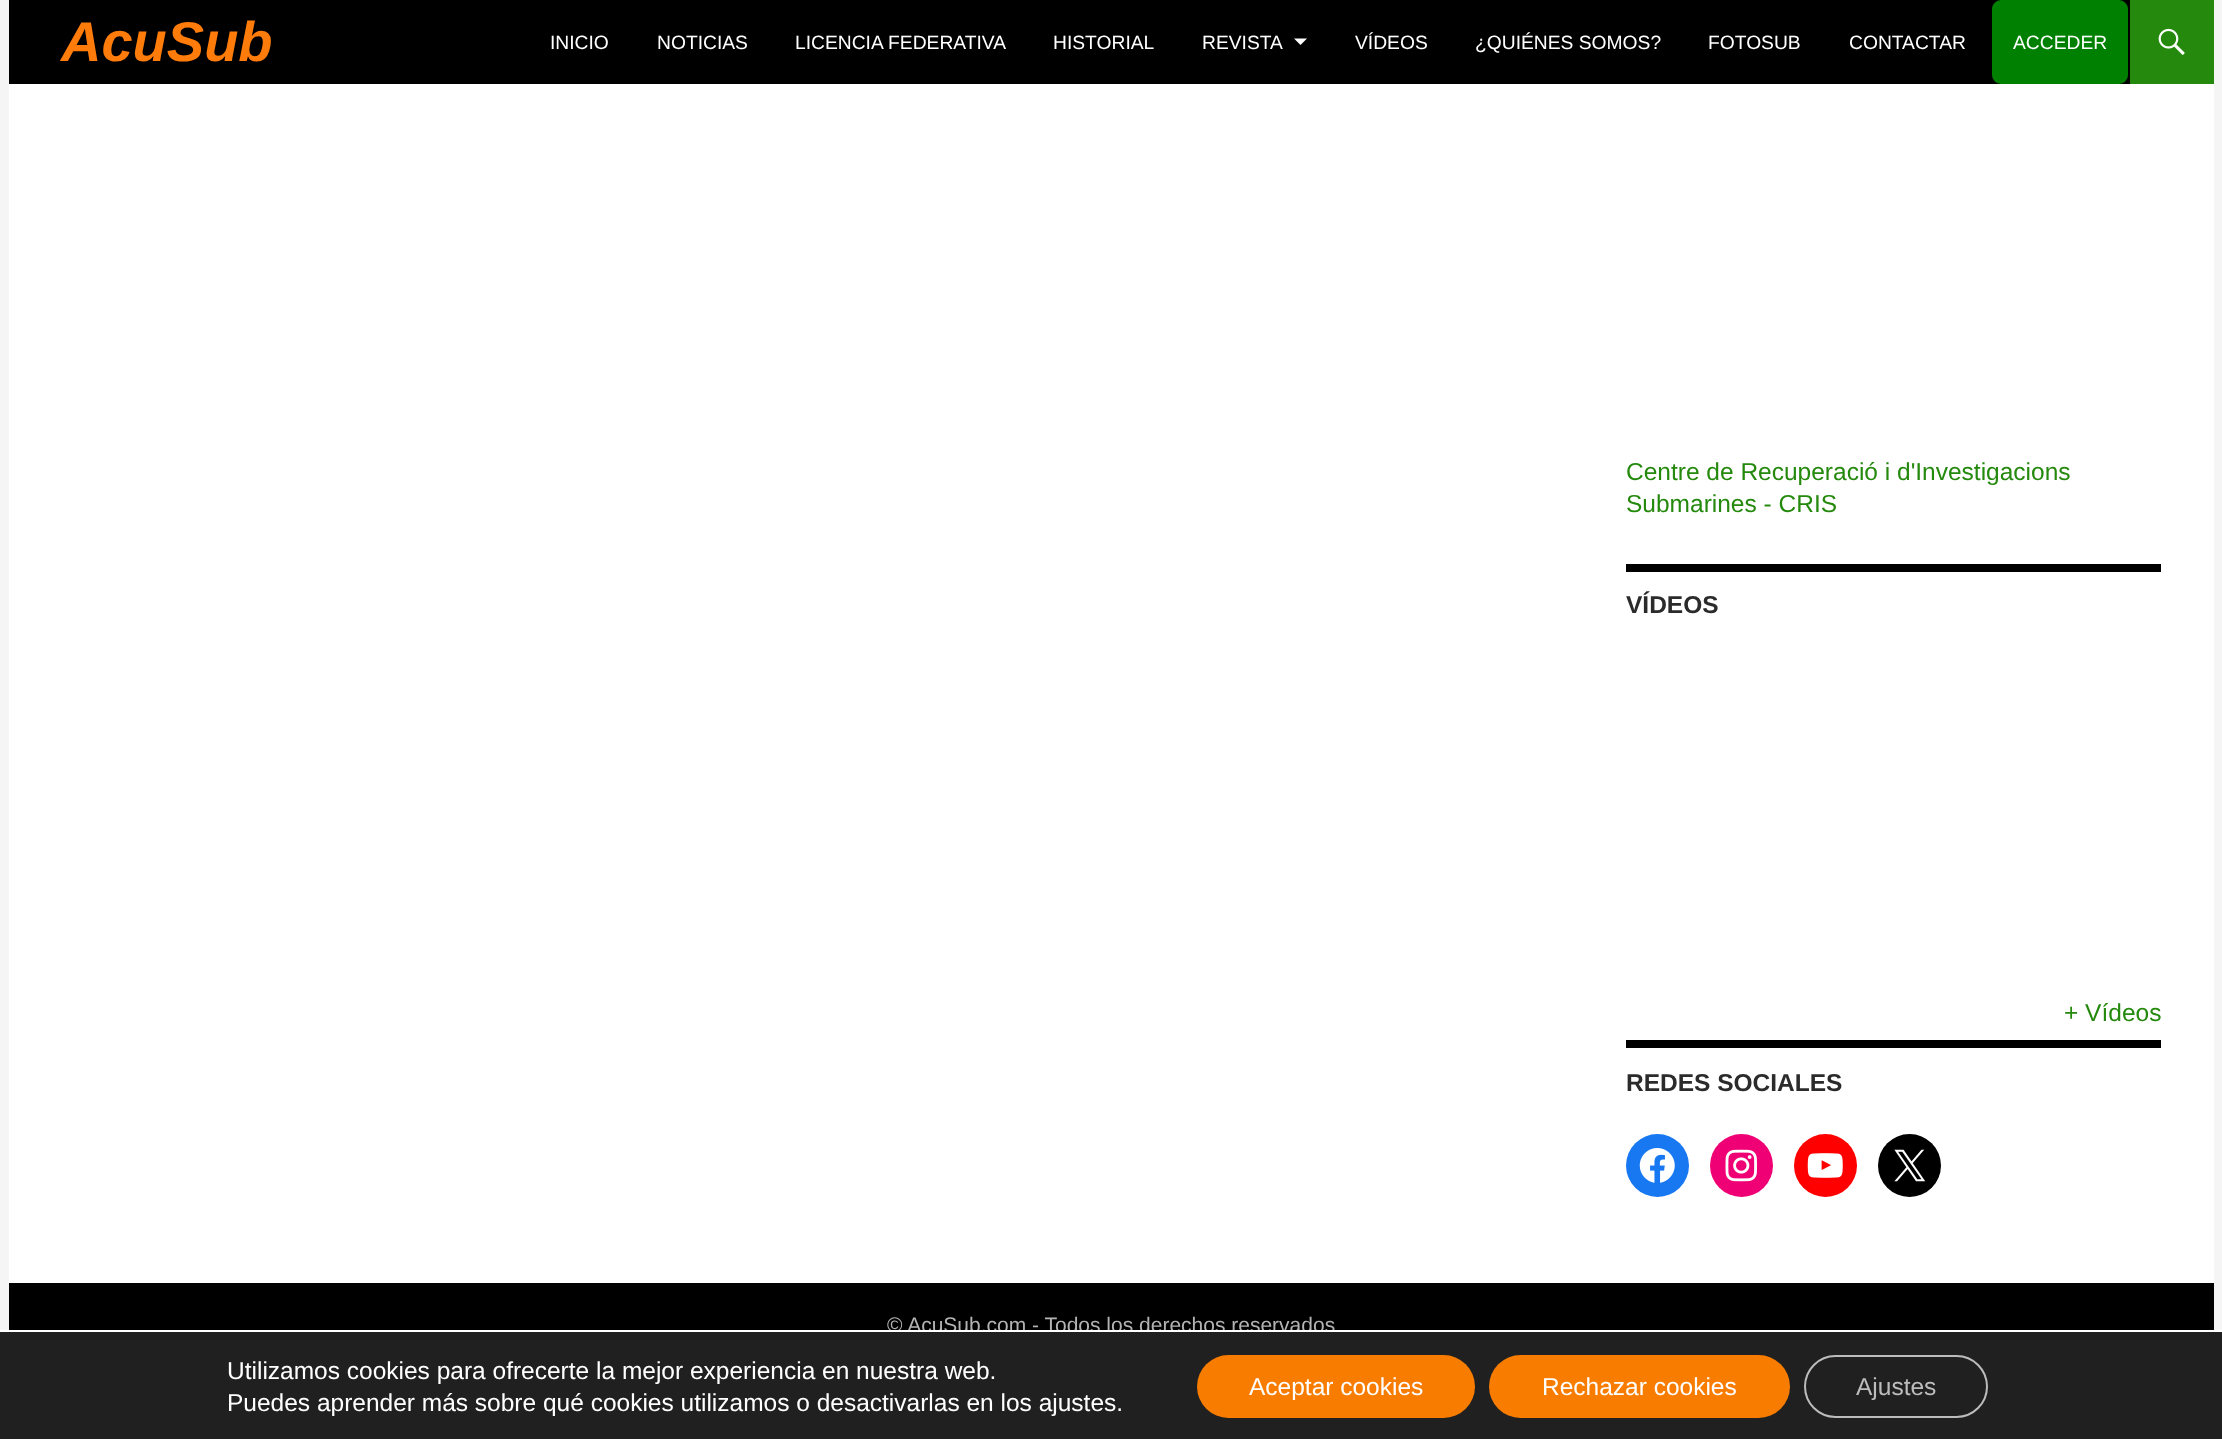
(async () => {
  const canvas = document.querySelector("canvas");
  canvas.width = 2222;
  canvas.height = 1439;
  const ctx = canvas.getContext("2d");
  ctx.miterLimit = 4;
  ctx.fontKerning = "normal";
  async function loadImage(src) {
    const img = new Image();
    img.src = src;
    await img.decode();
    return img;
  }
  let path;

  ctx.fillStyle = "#f5f5f5";
  ctx.fillRect(0, 0, 2222, 1439);
  ctx.fillStyle = "#ffffff";
  ctx.fillRect(9, 84, 2205, 1199);
  ctx.fillStyle = "#000000";
  ctx.fillRect(9, 0, 2121, 84);
  ctx.fillStyle = "#ffffff";
  path = new Path2D("M1294 38.5L1300.5 45L1307 38.5Z");
  ctx.fill(path);
  ctx.fillStyle = "#008000";
  ctx.beginPath();
  ctx.roundRect(1992, 0, 136, 84, 9);
  ctx.fill();
  ctx.fillStyle = "#24890d";
  ctx.fillRect(2130, 0, 84, 84);
  ctx.drawImage(await loadImage("img/1.png"), 2158, 28, 27, 27);
  ctx.fillStyle = "#000000";
  ctx.fillRect(1626, 564, 535, 8);
  ctx.fillRect(1626, 1040, 535, 8);
  ctx.fillStyle = "#1778f2";
  ctx.beginPath();
  ctx.arc(1657.5, 1165.5, 31.5, 0, Math.PI * 2);
  ctx.fill();
  ctx.drawImage(await loadImage("img/2.png"), 1639, 1148, 36, 35);
  ctx.fillStyle = "#f00075";
  ctx.beginPath();
  ctx.arc(1741.5, 1165.5, 31.5, 0, Math.PI * 2);
  ctx.fill();
  ctx.drawImage(await loadImage("img/3.png"), 1725, 1149, 32, 33);
  ctx.fillStyle = "#ff0000";
  ctx.beginPath();
  ctx.arc(1825.5, 1165.5, 31.5, 0, Math.PI * 2);
  ctx.fill();
  ctx.drawImage(await loadImage("img/4.png"), 1807, 1153, 36, 25);
  ctx.fillStyle = "#000000";
  ctx.beginPath();
  ctx.arc(1909.5, 1165.5, 31.5, 0, Math.PI * 2);
  ctx.fill();
  ctx.drawImage(await loadImage("img/5.png"), 1894, 1149, 32, 33);
  ctx.fillRect(9, 1283, 2205, 47);
  ctx.font = "italic bold 56px Liberation Sans";
  ctx.fillStyle = "#ff7b0a";
  ctx.fillText("AcuSub", 61, 61);
  ctx.font = "19.25px Liberation Sans";
  ctx.fillStyle = "#ffffff";
  for (const [text, x, y] of [
    ["INICIO", 550, 49],
    ["NOTICIAS", 657, 49],
    ["LICENCIA FEDERATIVA", 795, 49],
    ["HISTORIAL", 1053, 49],
    ["REVISTA", 1202, 49],
    ["VÍDEOS", 1355, 49],
    ["¿QUIÉNES SOMOS?", 1475, 49],
    ["FOTOSUB", 1708, 49],
    ["CONTACTAR", 1849, 49],
    ["ACCEDER", 2013, 49],
  ]) {
    ctx.fillText(text, x, y);
  }
  ctx.font = "24.5px Liberation Sans";
  ctx.fillStyle = "#24890d";
  ctx.fillText("Centre de Recuperació i d'Investigacions", 1626, 480);
  ctx.fillText("Submarines - CRIS", 1626, 512);
  ctx.font = "bold 24.5px Liberation Sans";
  ctx.fillStyle = "#2b2b2b";
  ctx.fillText("VÍDEOS", 1626, 613);
  ctx.font = "24.5px Liberation Sans";
  ctx.fillStyle = "#24890d";
  ctx.fillText("+ Vídeos", 2064, 1021);
  ctx.font = "bold 24.5px Liberation Sans";
  ctx.fillStyle = "#2b2b2b";
  ctx.fillText("REDES SOCIALES", 1626, 1091);
  ctx.font = "21px Liberation Sans";
  ctx.fillStyle = "#b3b3b3";
  ctx.fillText("© AcuSub.com - Todos los derechos reservados", 887, 1332);
  ctx.fillStyle = "#202020";
  ctx.fillRect(0, 1332, 2222, 107);
  ctx.fillStyle = "#ffffff";
  ctx.fillRect(0, 1330, 2222, 2);
  ctx.font = "24.5px Liberation Sans";
  ctx.fillText("Utilizamos cookies para ofrecerte la mejor experiencia en nuestra web.", 227, 1379);
  ctx.fillText("Puedes aprender más sobre qué cookies utilizamos o desactivarlas en los ajustes.", 227, 1411);
  ctx.fillStyle = "#f77c00";
  ctx.beginPath();
  ctx.roundRect(1197, 1355, 278, 63, 31.5);
  ctx.fill();
  ctx.fillStyle = "#ffffff";
  ctx.fillText("Aceptar cookies", 1249, 1395);
  ctx.fillStyle = "#f77c00";
  ctx.beginPath();
  ctx.roundRect(1489, 1355, 301, 63, 31.5);
  ctx.fill();
  ctx.fillStyle = "#ffffff";
  ctx.fillText("Rechazar cookies", 1542, 1395);
  ctx.beginPath();
  ctx.roundRect(1805, 1356, 182, 61, 30.5);
  ctx.strokeStyle = "#bcbcbc";
  ctx.lineWidth = 2;
  ctx.stroke();
  ctx.fillStyle = "#bcbcbc";
  ctx.fillText("Ajustes", 1856, 1395);
})();
